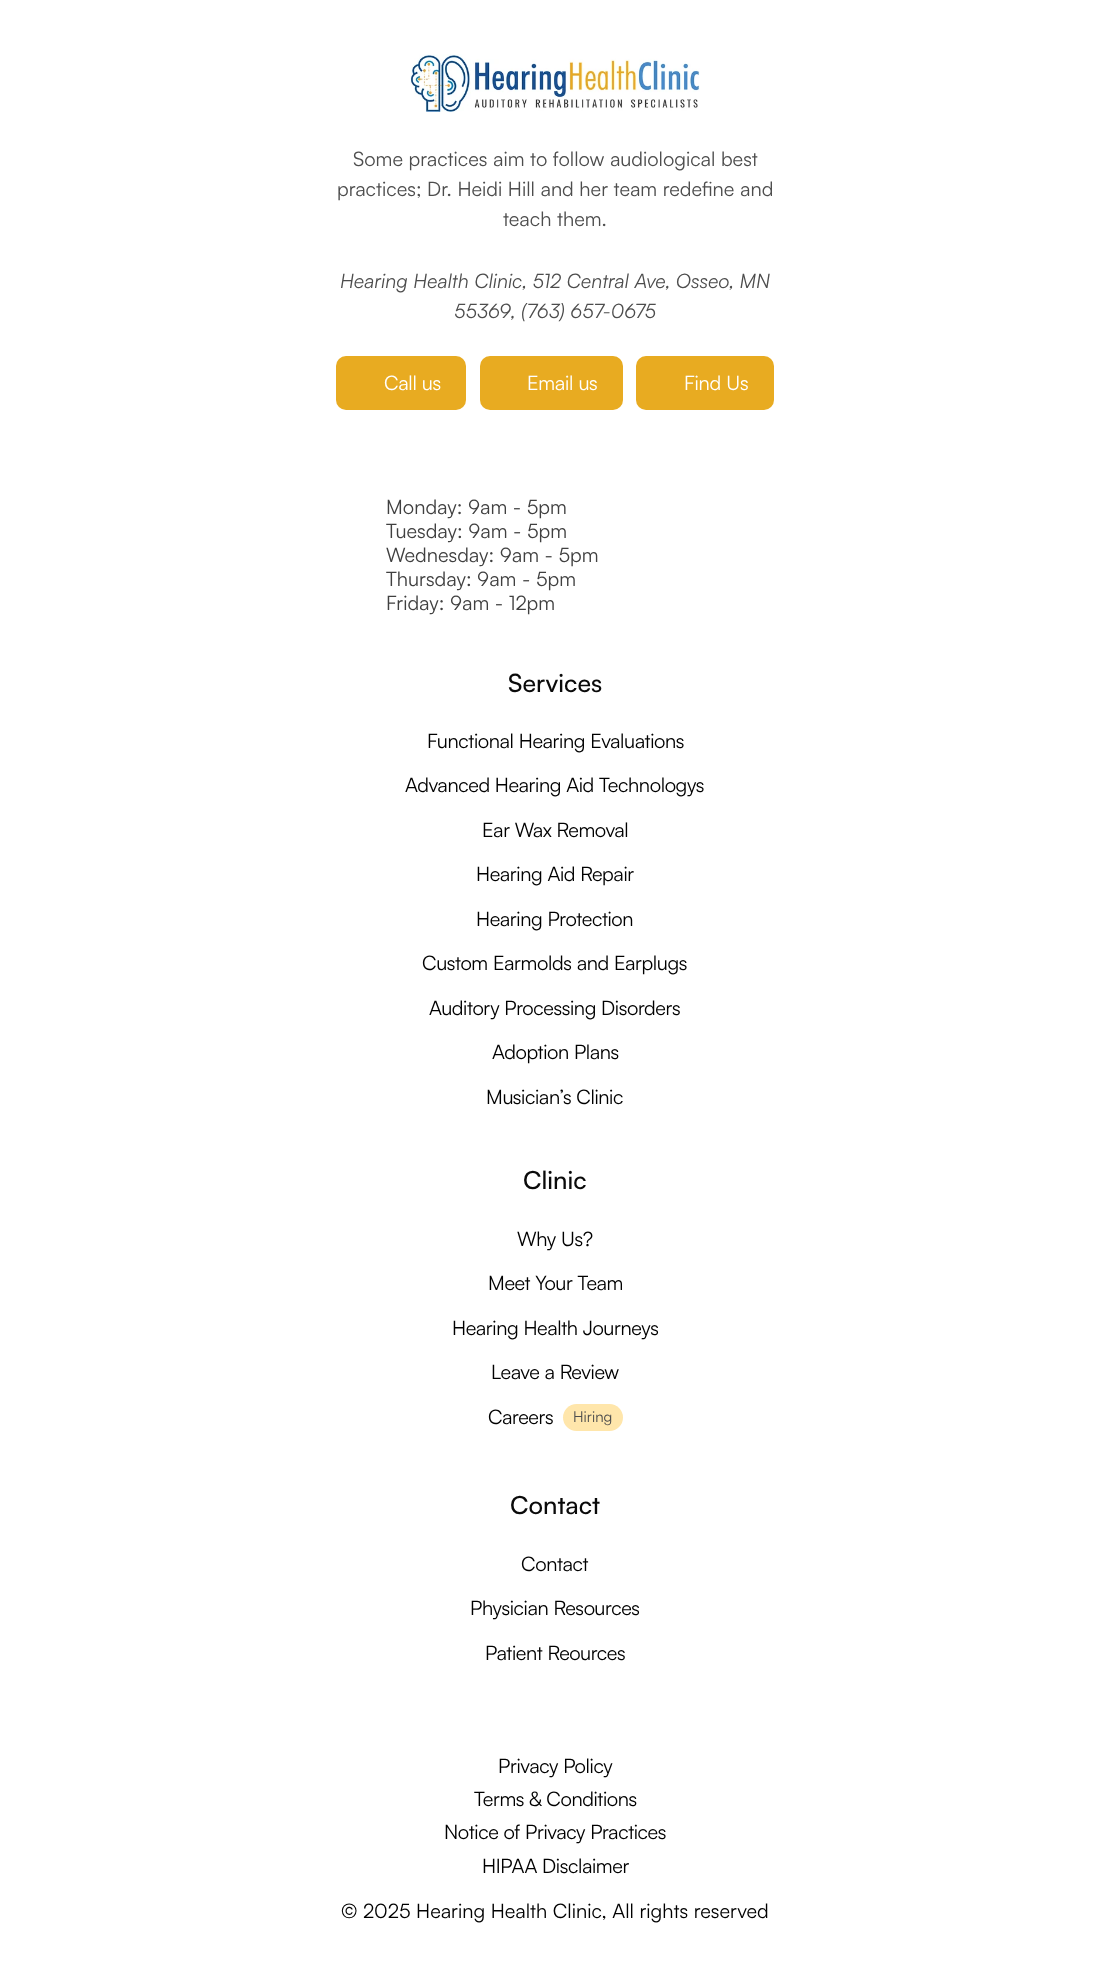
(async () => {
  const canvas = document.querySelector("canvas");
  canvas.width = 1110;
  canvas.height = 1972;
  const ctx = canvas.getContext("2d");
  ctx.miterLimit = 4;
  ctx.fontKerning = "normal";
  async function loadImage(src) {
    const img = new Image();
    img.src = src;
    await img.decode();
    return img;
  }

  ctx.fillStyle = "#ffffff";
  ctx.fillRect(0, 0, 1110, 1972);
  ctx.drawImage(await loadImage("img/1.png"), 410, 54, 290, 58);
  ctx.fillStyle = "#e8ab21";
  ctx.beginPath();
  ctx.roundRect(336, 356, 130, 54, 10);
  ctx.fill();
  ctx.beginPath();
  ctx.roundRect(480, 356, 143, 54, 10);
  ctx.fill();
  ctx.beginPath();
  ctx.roundRect(636, 356, 138, 54, 10);
  ctx.fill();
  ctx.fillStyle = "#ffe6ab";
  ctx.beginPath();
  ctx.roundRect(563, 1404, 60, 27, 13.5);
  ctx.fill();
  ctx.font = "20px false";
  ctx.fillStyle = "#4d4d4d";
  for (const [text, x, y] of [
    ["Some practices aim to follow audiological best", 353, 166],
    ["practices; Dr. Heidi Hill and her team redefine and", 337, 196],
    ["teach them.", 503, 226],
  ]) {
    ctx.fillText(text, x, y);
  }
  ctx.font = "italic 20px false";
  ctx.fillText("Hearing Health Clinic, 512 Central Ave, Osseo, MN", 340, 288);
  ctx.fillText("55369, (763) 657-0675", 454, 318);
  ctx.letterSpacing = "-0.25px";
  ctx.font = "20px false";
  ctx.fillStyle = "#ffffff";
  for (const [text, x, y] of [
    ["Call us", 384, 390],
    ["Email us", 527, 390],
    ["Find Us", 684, 390],
  ]) {
    ctx.fillText(text, x, y);
  }
  ctx.letterSpacing = "0px";
  ctx.fillStyle = "#404040";
  for (const [text, x, y] of [
    ["Monday: 9am - 5pm", 386, 514],
    ["Tuesday: 9am - 5pm", 386, 538],
    ["Wednesday: 9am - 5pm", 386, 562],
    ["Thursday: 9am - 5pm", 386, 586],
    ["Friday: 9am - 12pm", 386, 610],
  ]) {
    ctx.fillText(text, x, y);
  }
  ctx.font = "500 25px Satoshi";
  ctx.fillStyle = "#0a0a0a";
  ctx.fillText("Services", 508, 692);
  ctx.letterSpacing = "-0.4px";
  ctx.font = "20px Satoshi";
  ctx.fillStyle = "#000000";
  for (const [text, x, y] of [
    ["Functional Hearing Evaluations", 427, 748],
    ["Advanced Hearing Aid Technologys", 405, 792],
    ["Ear Wax Removal", 482, 837],
    ["Hearing Aid Repair", 476, 881],
    ["Hearing Protection", 476, 926],
    ["Custom Earmolds and Earplugs", 422, 970],
    ["Auditory Processing Disorders", 429, 1015],
    ["Adoption Plans", 492, 1059],
    ["Musician’s Clinic", 486, 1104],
  ]) {
    ctx.fillText(text, x, y);
  }
  ctx.letterSpacing = "0px";
  ctx.font = "500 25px Satoshi";
  ctx.fillStyle = "#0a0a0a";
  ctx.fillText("Clinic", 523, 1189);
  ctx.letterSpacing = "-0.4px";
  ctx.font = "20px Satoshi";
  ctx.fillStyle = "#000000";
  for (const [text, x, y] of [
    ["Why Us?", 517, 1246],
    ["Meet Your Team", 488, 1290],
    ["Hearing Health Journeys", 452, 1335],
    ["Leave a Review", 491, 1379],
    ["Careers", 488, 1424],
  ]) {
    ctx.fillText(text, x, y);
  }
  ctx.letterSpacing = "0px";
  ctx.font = "15px false";
  ctx.fillStyle = "#4d4d4d";
  ctx.fillText("Hiring", 573, 1422);
  ctx.font = "500 25px Satoshi";
  ctx.fillStyle = "#0a0a0a";
  ctx.fillText("Contact", 510, 1514);
  ctx.letterSpacing = "-0.4px";
  ctx.font = "20px Satoshi";
  ctx.fillStyle = "#000000";
  for (const [text, x, y] of [
    ["Contact", 521, 1571],
    ["Physician Resources", 470, 1615],
    ["Patient Reources", 485, 1660],
    ["Privacy Policy", 498, 1773],
    ["Terms & Conditions", 474, 1806],
    ["Notice of Privacy Practices", 444, 1839],
    ["HIPAA Disclaimer", 482, 1873],
  ]) {
    ctx.fillText(text, x, y);
  }
  ctx.letterSpacing = "0px";
  ctx.font = "20px false";
  ctx.fillText("© 2025 Hearing Health Clinic, All rights reserved", 341, 1918);
})();
